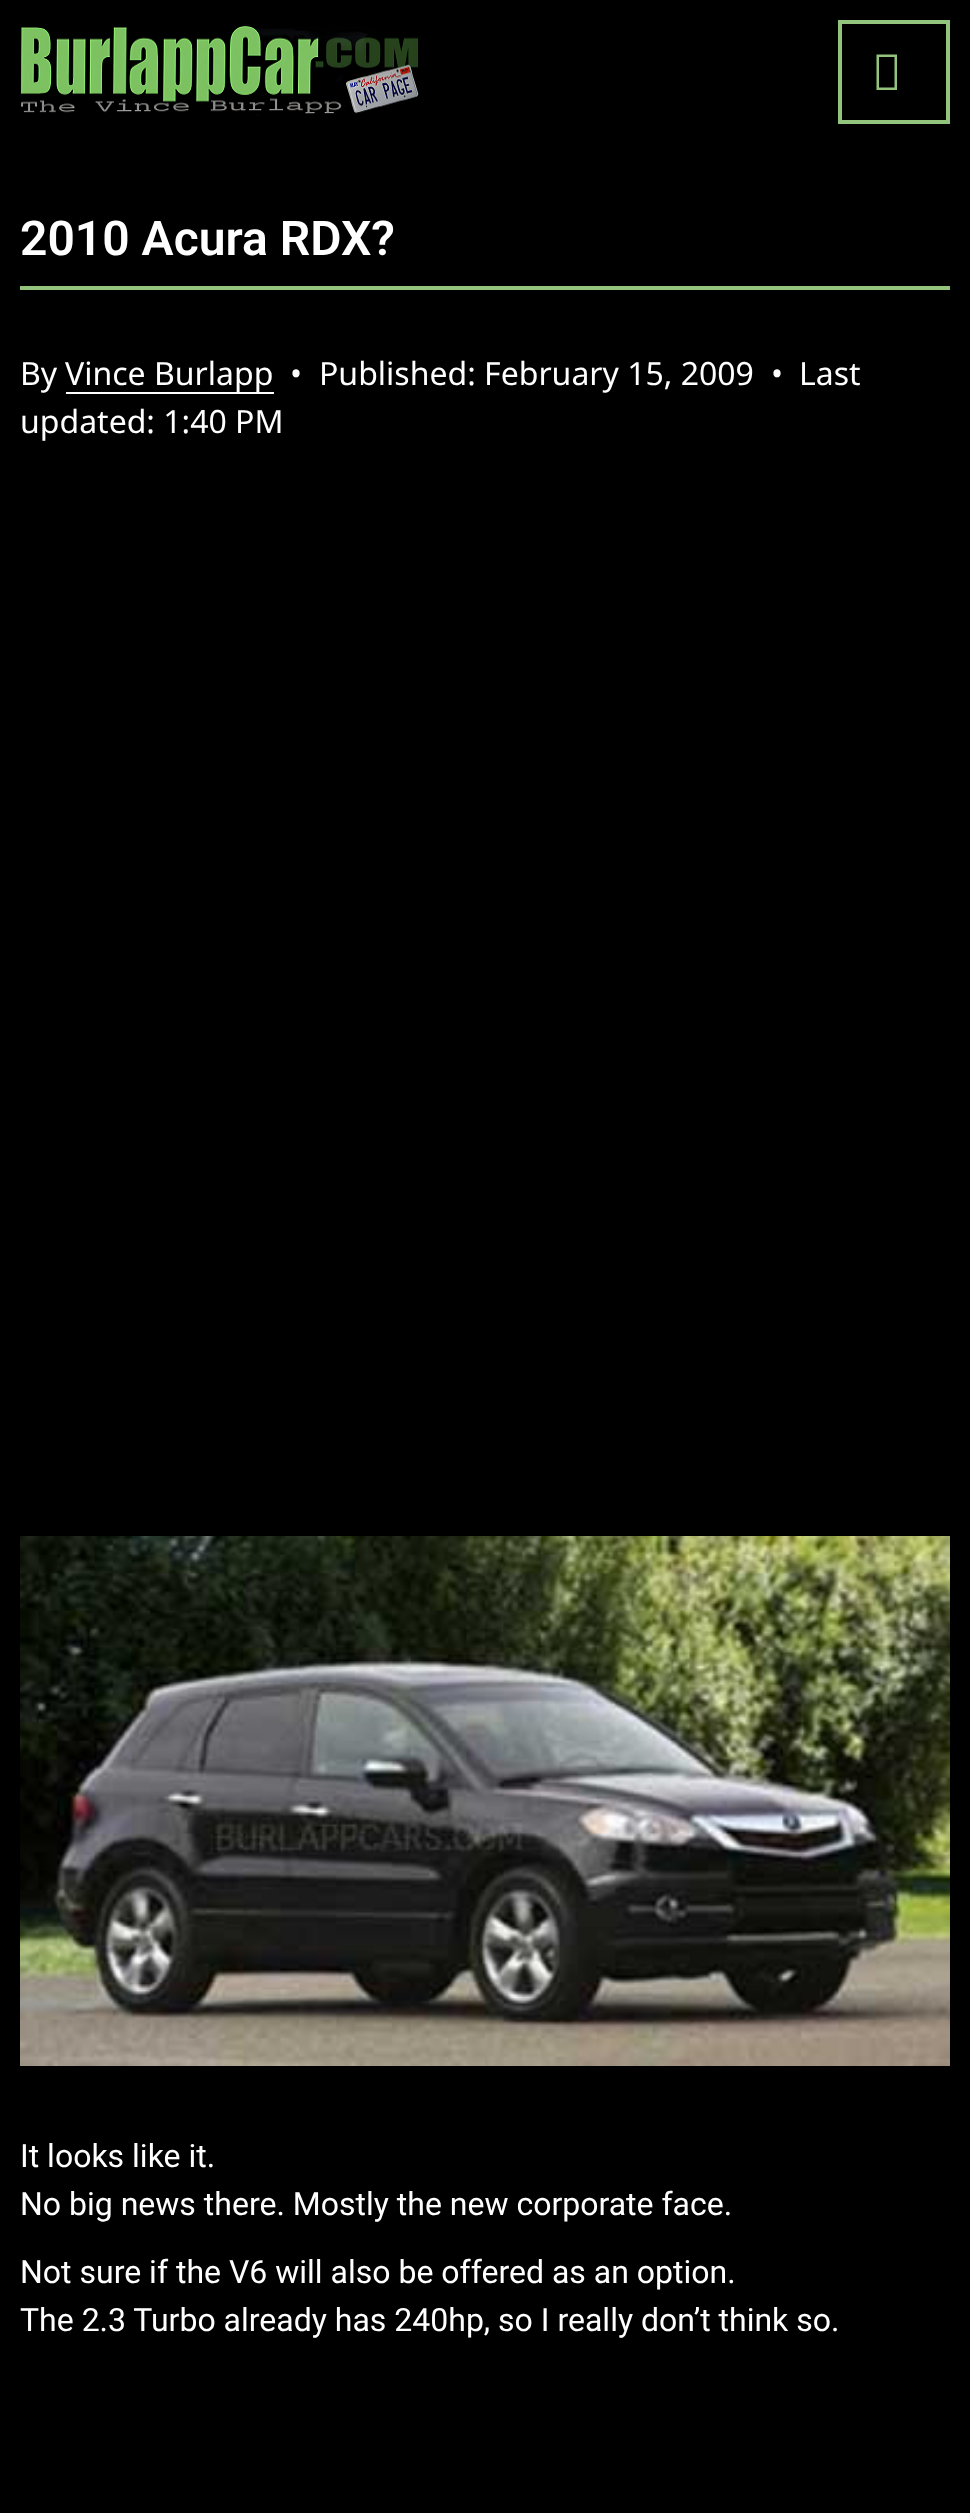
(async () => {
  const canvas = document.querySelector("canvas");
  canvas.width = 970;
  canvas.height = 2513;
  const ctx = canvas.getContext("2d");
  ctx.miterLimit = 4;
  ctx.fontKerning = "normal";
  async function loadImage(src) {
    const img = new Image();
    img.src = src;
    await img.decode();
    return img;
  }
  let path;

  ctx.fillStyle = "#000000";
  ctx.fillRect(0, 0, 970, 2513);
  ctx.drawImage(await loadImage("img/1.png"), 20, 26, 399, 90);
  ctx.strokeStyle = "#93c47d";
  ctx.lineWidth = 4;
  ctx.strokeRect(840, 22, 108, 100);
  ctx.fillStyle = "#93c47d";
  path = new Path2D("M876.5 90V54.5H897V90ZM879 87.5H894.5V57H879Z");
  ctx.fill(path);
  ctx.fillRect(20, 286, 930, 4);
  ctx.fillStyle = "#ffffff";
  ctx.fillRect(66, 392, 208, 2);
  ctx.drawImage(await loadImage("img/2.png"), 20, 1536, 930, 530);
  ctx.font = "600 48px Roboto";
  ctx.fillText("2010 Acura RDX?", 20, 255);
  ctx.font = "32px Noto Sans";
  for (const [text, x, y] of [
    ["By", 20, 385],
    ["Vince Burlapp", 65, 385],
    ["•", 290, 385],
    ["Published: February 15, 2009", 319, 385],
    ["•", 771, 385],
    ["Last", 799, 385],
    ["updated: 1:40 PM", 20, 433],
  ]) {
    ctx.fillText(text, x, y);
  }
  ctx.font = "32px Roboto";
  for (const [text, x, y] of [
    ["It looks like it.", 20, 2167],
    ["No big news there. Mostly the new corporate face.", 20, 2215],
    ["Not sure if the V6 will also be offered as an option.", 20, 2283],
    ["The 2.3 Turbo already has 240hp, so I really don’t think so.", 20, 2331],
  ]) {
    ctx.fillText(text, x, y);
  }
})();
